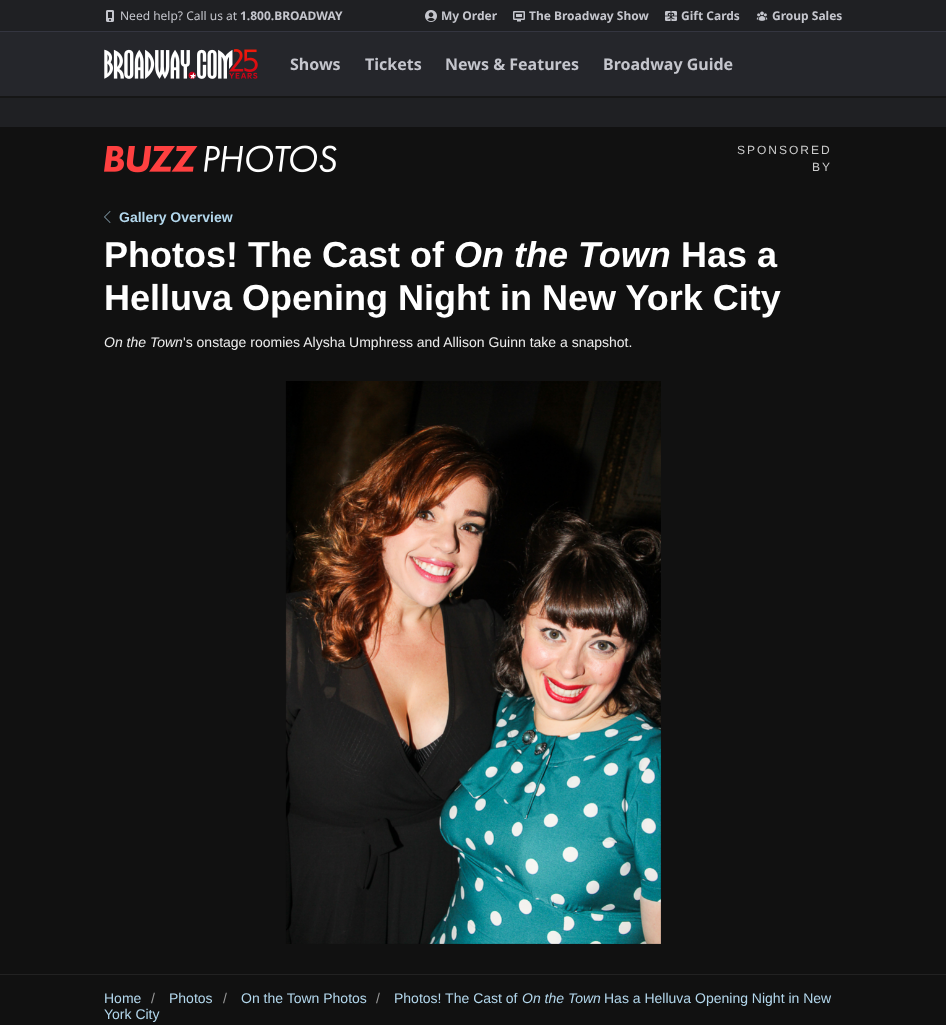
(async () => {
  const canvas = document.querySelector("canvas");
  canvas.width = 946;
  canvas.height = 1025;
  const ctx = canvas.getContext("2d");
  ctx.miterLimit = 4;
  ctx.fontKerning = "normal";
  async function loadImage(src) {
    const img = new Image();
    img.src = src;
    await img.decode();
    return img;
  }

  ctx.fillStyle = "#111111";
  ctx.fillRect(0, 0, 946, 1025);
  for (const [x, y, w, h, color] of [
    [0, 32, 946, 64, "#25262b"],
    [0, 0, 946, 31, "#1f2023"],
    [0, 31, 946, 1, "#343540"],
  ]) {
    ctx.fillStyle = color;
    ctx.fillRect(x, y, w, h);
  }
  ctx.drawImage(await loadImage("img/1.png"), 106, 10, 8, 12);
  ctx.drawImage(await loadImage("img/2.png"), 425, 10, 12, 12);
  ctx.drawImage(await loadImage("img/3.png"), 513, 11, 12, 11);
  ctx.drawImage(await loadImage("img/4.png"), 665, 11, 12, 10);
  ctx.drawImage(await loadImage("img/5.png"), 756, 11, 12, 10);
  ctx.fillStyle = "#161616";
  ctx.fillRect(0, 96, 946, 2);
  ctx.drawImage(await loadImage("img/6.png"), 104, 49, 154, 30);
  ctx.fillStyle = "#1f2023";
  ctx.fillRect(0, 98, 946, 29);
  ctx.drawImage(await loadImage("img/7.png"), 104, 145, 233, 28);
  ctx.drawImage(await loadImage("img/8.png"), 104, 211, 7, 12);
  ctx.drawImage(await loadImage("img/9.png"), 285, 381, 376, 563);
  ctx.fillStyle = "#222222";
  ctx.fillRect(0, 974, 946, 1);
  ctx.font = "12px Noto Sans";
  ctx.fillStyle = "#c5c6cd";
  ctx.fillText("Need help? Call us at", 120, 20);
  ctx.font = "bold 12px Noto Sans";
  for (const [text, x, y] of [
    ["1.800.BROADWAY", 240, 20],
    ["My Order", 441, 20],
    ["The Broadway Show", 529, 20],
    ["Gift Cards", 681, 20],
    ["Group Sales", 772, 20],
  ]) {
    ctx.fillText(text, x, y);
  }
  ctx.font = "bold 16px Noto Sans";
  for (const [text, x, y] of [
    ["Shows", 290, 70],
    ["Tickets", 365, 70],
    ["News & Features", 445, 70],
    ["Broadway Guide", 603, 70],
  ]) {
    ctx.fillText(text, x, y);
  }
  ctx.letterSpacing = "2px";
  ctx.font = "12px Liberation Sans";
  ctx.fillStyle = "#cccccc";
  ctx.fillText("SPONSORED", 737, 154);
  ctx.fillText("BY", 812, 171);
  ctx.letterSpacing = "0px";
  ctx.font = "bold 14px Liberation Sans";
  ctx.fillStyle = "#b3d7ec";
  ctx.fillText("Gallery Overview", 119, 222);
  ctx.font = "bold 36px Liberation Sans";
  ctx.fillStyle = "#ffffff";
  ctx.fillText("Photos! The Cast of", 104, 267);
  ctx.font = "italic bold 36px Liberation Sans";
  ctx.fillText("On the Town", 454, 267);
  ctx.font = "bold 36px Liberation Sans";
  ctx.fillText("Has a", 681, 267);
  ctx.fillText("Helluva Opening Night in New York City", 104, 310);
  ctx.font = "italic 14px Liberation Sans";
  ctx.fillStyle = "#eeeeee";
  ctx.fillText("On the Town", 104, 347);
  ctx.font = "14px Liberation Sans";
  ctx.fillText("'s onstage roomies Alysha Umphress and Allison Guinn take a snapshot.", 183, 347);
  ctx.fillStyle = "#b3d7ec";
  ctx.fillText("Home", 104, 1003);
  ctx.fillStyle = "#999999";
  ctx.fillText("/", 151, 1003);
  ctx.fillStyle = "#b3d7ec";
  ctx.fillText("Photos", 169, 1003);
  ctx.fillStyle = "#999999";
  ctx.fillText("/", 223, 1003);
  ctx.fillStyle = "#b3d7ec";
  ctx.fillText("On the Town Photos", 241, 1003);
  ctx.fillStyle = "#999999";
  ctx.fillText("/", 376, 1003);
  ctx.fillStyle = "#b3d7ec";
  ctx.fillText("Photos! The Cast of", 394, 1003);
  ctx.font = "italic 14px Liberation Sans";
  ctx.fillText("On the Town", 522, 1003);
  ctx.font = "14px Liberation Sans";
  ctx.fillText("Has a Helluva Opening Night in New", 604, 1003);
  ctx.fillText("York City", 104, 1019);
})();
